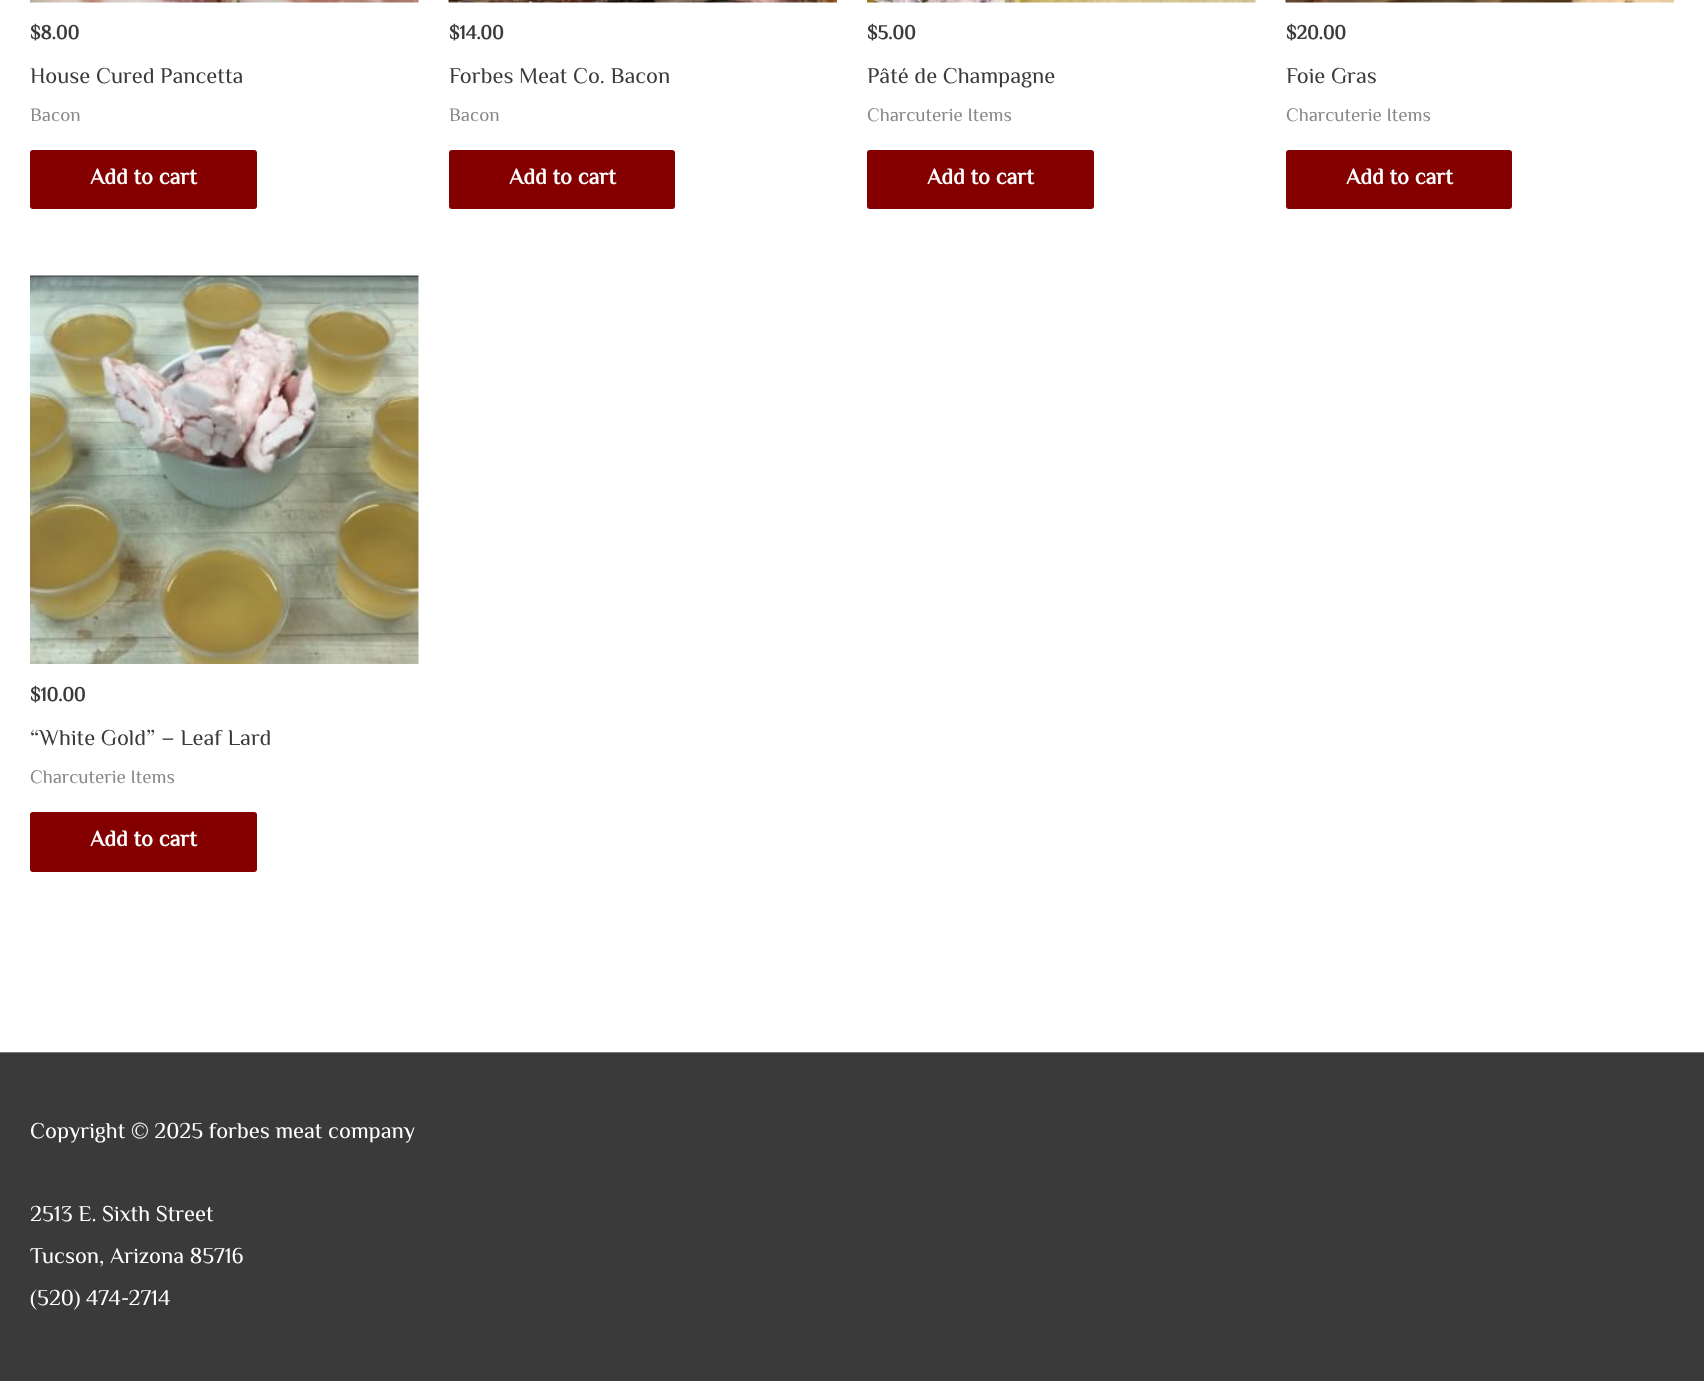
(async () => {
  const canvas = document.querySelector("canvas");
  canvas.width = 1704;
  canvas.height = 1381;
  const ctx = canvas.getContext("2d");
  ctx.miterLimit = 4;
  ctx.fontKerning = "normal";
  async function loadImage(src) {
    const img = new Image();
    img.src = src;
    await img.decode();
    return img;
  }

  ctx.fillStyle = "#ffffff";
  ctx.fillRect(0, 0, 1704, 1381);
  ctx.drawImage(await loadImage("img/1.png"), 30, 0, 389, 3);
  ctx.fillStyle = "#840000";
  ctx.beginPath();
  ctx.roundRect(30, 150, 227, 59, 3);
  ctx.fill();
  ctx.drawImage(await loadImage("img/2.png"), 448, 0, 389, 3);
  ctx.beginPath();
  ctx.roundRect(449, 150, 226, 59, 3);
  ctx.fill();
  ctx.drawImage(await loadImage("img/3.png"), 867, 0, 389, 3);
  ctx.beginPath();
  ctx.roundRect(867, 150, 227, 59, 3);
  ctx.fill();
  ctx.drawImage(await loadImage("img/4.png"), 1285, 0, 389, 3);
  ctx.beginPath();
  ctx.roundRect(1286, 150, 226, 59, 3);
  ctx.fill();
  ctx.drawImage(await loadImage("img/5.png"), 30, 275, 389, 389);
  ctx.beginPath();
  ctx.roundRect(30, 812, 227, 60, 3);
  ctx.fill();
  ctx.fillStyle = "#7a7a7a";
  ctx.fillRect(0, 1052, 1704, 1);
  ctx.fillStyle = "#3a3a3a";
  ctx.fillRect(0, 1053, 1704, 328);
  ctx.font = "bold 20px El Messiri";
  ctx.fillText("$8.00", 30, 39);
  ctx.font = "22.5px El Messiri";
  ctx.fillText("House Cured Pancetta", 30, 83);
  ctx.font = "19px El Messiri";
  ctx.fillStyle = "#898989";
  ctx.fillText("Bacon", 30, 121);
  ctx.font = "bold 22.5px El Messiri";
  ctx.fillStyle = "#ffffff";
  ctx.fillText("Add to cart", 90, 184);
  ctx.font = "bold 20px El Messiri";
  ctx.fillStyle = "#3a3a3a";
  ctx.fillText("$14.00", 449, 39);
  ctx.font = "22.5px El Messiri";
  ctx.fillText("Forbes Meat Co. Bacon", 449, 83);
  ctx.font = "19px El Messiri";
  ctx.fillStyle = "#898989";
  ctx.fillText("Bacon", 449, 121);
  ctx.font = "bold 22.5px El Messiri";
  ctx.fillStyle = "#ffffff";
  ctx.fillText("Add to cart", 509, 184);
  ctx.font = "bold 20px El Messiri";
  ctx.fillStyle = "#3a3a3a";
  ctx.fillText("$5.00", 867, 39);
  ctx.font = "22.5px El Messiri";
  ctx.fillText("Pâté de Champagne", 867, 83);
  ctx.font = "19px El Messiri";
  ctx.fillStyle = "#898989";
  ctx.fillText("Charcuterie Items", 867, 121);
  ctx.font = "bold 22.5px El Messiri";
  ctx.fillStyle = "#ffffff";
  ctx.fillText("Add to cart", 927, 184);
  ctx.font = "bold 20px El Messiri";
  ctx.fillStyle = "#3a3a3a";
  ctx.fillText("$20.00", 1286, 39);
  ctx.font = "22.5px El Messiri";
  ctx.fillText("Foie Gras", 1286, 83);
  ctx.font = "19px El Messiri";
  ctx.fillStyle = "#898989";
  ctx.fillText("Charcuterie Items", 1286, 121);
  ctx.font = "bold 22.5px El Messiri";
  ctx.fillStyle = "#ffffff";
  ctx.fillText("Add to cart", 1346, 184);
  ctx.font = "bold 20px El Messiri";
  ctx.fillStyle = "#3a3a3a";
  ctx.fillText("$10.00", 30, 701);
  ctx.font = "22.5px El Messiri";
  ctx.fillText("“White Gold” – Leaf Lard", 30, 745);
  ctx.font = "19px El Messiri";
  ctx.fillStyle = "#898989";
  ctx.fillText("Charcuterie Items", 30, 783);
  ctx.font = "bold 22.5px El Messiri";
  ctx.fillStyle = "#ffffff";
  ctx.fillText("Add to cart", 90, 846);
  ctx.font = "22.5px El Messiri";
  for (const [text, x, y] of [
    ["Copyright © 2025 forbes meat company", 30, 1138],
    ["2513 E. Sixth Street", 30, 1221],
    ["Tucson, Arizona 85716", 30, 1263],
    ["(520) 474-2714", 30, 1305],
  ]) {
    ctx.fillText(text, x, y);
  }
})();
